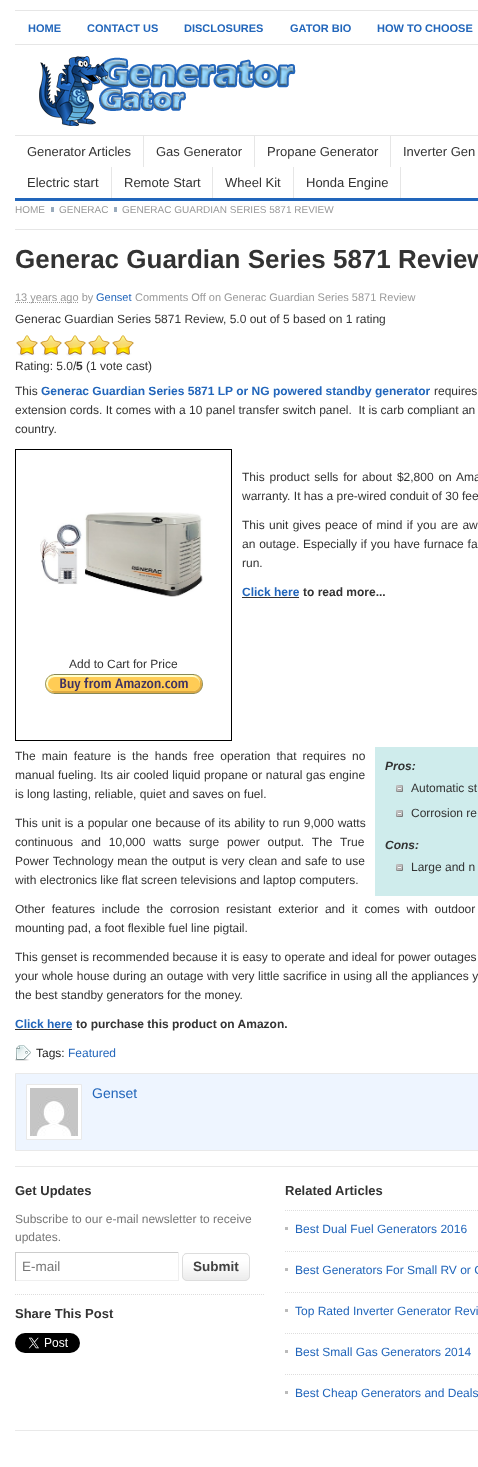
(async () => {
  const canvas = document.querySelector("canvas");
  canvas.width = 478;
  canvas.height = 1467;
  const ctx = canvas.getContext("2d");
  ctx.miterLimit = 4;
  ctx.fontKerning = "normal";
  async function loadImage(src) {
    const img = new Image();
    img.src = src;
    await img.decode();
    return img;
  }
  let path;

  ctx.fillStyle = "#ffffff";
  ctx.fillRect(0, 0, 478, 1467);
  ctx.fillStyle = "#e6e6e6";
  ctx.fillRect(15, 10, 463, 1);
  ctx.fillRect(15, 44, 463, 1);
  ctx.drawImage(await loadImage("img/1.png"), 39, 56, 257, 70);
  for (const [x, y, w, h, color] of [
    [15, 135, 463, 1, "#e6e6e6"],
    [15, 198, 463, 3, "#2266bb"],
    [143, 136, 1, 31, "#e6e6e6"],
    [254, 136, 1, 31, "#e6e6e6"],
    [390, 136, 1, 31, "#e6e6e6"],
    [111, 167, 1, 31, "#e6e6e6"],
    [212, 167, 1, 31, "#e6e6e6"],
    [293, 167, 1, 31, "#e6e6e6"],
    [400, 167, 1, 31, "#e6e6e6"],
    [15, 229, 463, 1, "#e6e6e6"],
    [51, 207, 3, 5, "#9aabbc"],
    [114, 207, 3, 5, "#9aabbc"],
  ]) {
    ctx.fillStyle = color;
    ctx.fillRect(x, y, w, h);
  }
  path = new Path2D("M15 302.5H78.5");
  ctx.strokeStyle = "#999999";
  ctx.setLineDash([1, 1]);
  ctx.stroke(path);
  ctx.drawImage(await loadImage("img/2.png"), 16, 335, 118, 21);
  ctx.drawImage(await loadImage("img/3.png"), 16, 335, 118, 20);
  ctx.fillStyle = "#333333";
  ctx.fillRect(242, 597, 57, 1);
  ctx.strokeStyle = "#000000";
  ctx.setLineDash([]);
  ctx.strokeRect(15.5, 449.5, 216, 291);
  ctx.drawImage(await loadImage("img/4.png"), 40, 512, 163, 85);
  ctx.drawImage(await loadImage("img/5.png"), 45, 674, 158, 20);
  ctx.fillStyle = "#cfecec";
  ctx.fillRect(375, 747, 103, 149);
  ctx.drawImage(await loadImage("img/6.png"), 396, 785, 7, 7);
  ctx.drawImage(await loadImage("img/6.png"), 396, 810, 7, 7);
  ctx.drawImage(await loadImage("img/6.png"), 396, 864, 7, 7);
  ctx.fillStyle = "#333333";
  ctx.fillRect(15, 1029, 57, 1);
  ctx.drawImage(await loadImage("img/7.png"), 15, 1045, 16, 16);
  ctx.fillStyle = "#eef5ff";
  ctx.beginPath();
  ctx.rect(15.5, 1073.5, 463, 77);
  ctx.fill();
  ctx.strokeStyle = "#e9e9e9";
  ctx.stroke();
  ctx.fillStyle = "#ffffff";
  ctx.beginPath();
  ctx.rect(26.5, 1084.5, 55, 55);
  ctx.fill();
  ctx.stroke();
  ctx.drawImage(await loadImage("img/8.png"), 30, 1088, 48, 48);
  ctx.fillStyle = "#e9e9e9";
  ctx.fillRect(15, 1166, 463, 1);
  ctx.fillRect(15, 1430, 463, 1);
  path = new Path2D("M15 1294.5H265");
  ctx.strokeStyle = "#dddddd";
  ctx.setLineDash([1, 1]);
  ctx.stroke(path);
  for (const [x, y, w, h, color] of [
    [15, 1252, 164, 1, "#cccccc"],
    [178, 1252, 1, 29, "#efefef"],
    [15, 1280, 164, 1, "#efefef"],
    [15, 1252, 1, 29, "#cccccc"],
  ]) {
    ctx.fillStyle = color;
    ctx.fillRect(x, y, w, h);
  }
  ctx.drawImage(await loadImage("img/9.png"), 182, 1253, 68, 28);
  ctx.beginPath();
  ctx.roundRect(182.5, 1253.5, 67, 27, 4.5);
  ctx.setLineDash([]);
  ctx.stroke();
  ctx.drawImage(await loadImage("img/10.png"), 15, 1333, 65, 20);
  ctx.fillStyle = "#bbbbbb";
  ctx.fillRect(285, 1227, 3, 3);
  path = new Path2D("M285 1210.5H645");
  ctx.setLineDash([1, 1]);
  ctx.stroke(path);
  ctx.fillRect(285, 1268, 3, 3);
  path = new Path2D("M285 1251.5H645");
  ctx.stroke(path);
  ctx.fillRect(285, 1309, 3, 3);
  path = new Path2D("M285 1292.5H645");
  ctx.stroke(path);
  ctx.fillRect(285, 1350, 3, 3);
  path = new Path2D("M285 1333.5H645");
  ctx.stroke(path);
  ctx.fillRect(285, 1391, 3, 3);
  path = new Path2D("M285 1374.5H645");
  ctx.stroke(path);
  ctx.font = "bold 11px Liberation Sans";
  ctx.fillStyle = "#2266bb";
  for (const [text, x, y] of [
    ["HOME", 28, 32],
    ["CONTACT US", 87, 32],
    ["DISCLOSURES", 184, 32],
    ["GATOR BIO", 290, 32],
    ["HOW TO CHOOSE", 377, 32],
  ]) {
    ctx.fillText(text, x, y);
  }
  ctx.font = "13px Liberation Sans";
  ctx.fillStyle = "#333333";
  for (const [text, x, y] of [
    ["Generator Articles", 27, 156],
    ["Gas Generator", 156, 156],
    ["Propane Generator", 267, 156],
    ["Inverter Gen", 403, 156],
    ["Electric start", 27, 187],
    ["Remote Start", 124, 187],
    ["Wheel Kit", 225, 187],
    ["Honda Engine", 306, 187],
  ]) {
    ctx.fillText(text, x, y);
  }
  ctx.font = "10px Liberation Sans";
  ctx.fillStyle = "#999999";
  for (const [text, x, y] of [
    ["HOME", 15, 213],
    ["GENERAC", 59, 213],
    ["GENERAC GUARDIAN SERIES 5871 REVIEW", 122, 213],
  ]) {
    ctx.fillText(text, x, y);
  }
  ctx.font = "bold 26px Liberation Sans";
  ctx.fillStyle = "#333333";
  ctx.fillText("Generac Guardian Series 5871 Review", 15, 268);
  ctx.font = "11px Liberation Sans";
  ctx.fillStyle = "#999999";
  ctx.fillText("13 years ago by", 15, 301);
  ctx.fillStyle = "#2266bb";
  ctx.fillText("Genset", 96, 301);
  ctx.fillStyle = "#999999";
  ctx.fillText("Comments Off on Generac Guardian Series 5871 Review", 135, 301);
  ctx.font = "12px Liberation Sans";
  ctx.fillStyle = "#333333";
  for (const [text, x, y] of [
    ["Generac Guardian Series 5871 Review", 15, 323],
    [", 5.0 out of 5 based on 1 rating", 223, 323],
    ["Rating: 5.0/", 15, 370],
  ]) {
    ctx.fillText(text, x, y);
  }
  ctx.font = "bold 12px Liberation Sans";
  ctx.fillText("5", 76, 370);
  ctx.font = "12px Liberation Sans";
  ctx.fillText("(1 vote cast)", 86, 370);
  ctx.fillText("This", 15, 395);
  ctx.font = "bold 12px Liberation Sans";
  ctx.fillStyle = "#2266bb";
  ctx.fillText("Generac Guardian Series 5871 LP or NG powered standby generator", 41, 395);
  ctx.font = "12px Liberation Sans";
  ctx.fillStyle = "#333333";
  for (const [text, x, y] of [
    ["requires", 434, 395],
    ["extension cords. It comes with a 10 panel transfer switch panel.  It is carb compliant an", 15, 414],
    ["country.", 15, 433],
  ]) {
    ctx.fillText(text, x, y);
  }
  ctx.wordSpacing = "1.5px";
  ctx.fillText("This product sells for about $2,800 on Ama", 242, 481);
  ctx.wordSpacing = "0px";
  ctx.fillText("warranty. It has a pre-wired conduit of 30 fee", 242, 500);
  ctx.wordSpacing = "1px";
  ctx.fillText("This unit gives peace of mind if you are aw", 242, 529);
  ctx.wordSpacing = "0.5px";
  ctx.fillText("an outage.", 242, 548);
  ctx.fillText("Especially if you have furnace fa", 303, 548);
  ctx.wordSpacing = "0px";
  ctx.fillText("run.", 242, 567);
  ctx.font = "bold 12px Liberation Sans";
  ctx.fillStyle = "#2266bb";
  ctx.fillText("Click here", 242, 596);
  ctx.fillStyle = "#333333";
  ctx.fillText("to read more...", 303, 596);
  ctx.font = "12px Liberation Sans";
  ctx.fillText("Add to Cart for Price", 69, 668);
  ctx.wordSpacing = "2.75px";
  ctx.fillText("The main feature is the hands free operation that requires no", 15, 760);
  ctx.wordSpacing = "0.25px";
  ctx.fillText("manual fueling. Its air cooled liquid propane or natural gas engine", 15, 779);
  ctx.wordSpacing = "0px";
  ctx.fillText("is long lasting, reliable, quiet and saves on fuel.", 15, 798);
  ctx.font = "italic bold 12px Liberation Sans";
  ctx.fillText("Pros:", 385, 770);
  ctx.font = "12px Liberation Sans";
  ctx.fillText("Automatic st", 411, 792);
  ctx.fillText("Corrosion re", 411, 817);
  ctx.font = "italic bold 12px Liberation Sans";
  ctx.fillText("Cons:", 385, 849);
  ctx.font = "12px Liberation Sans";
  ctx.fillText("Large and n", 411, 871);
  ctx.wordSpacing = "0.5px";
  ctx.fillText("This unit is a popular one because of its ability to run 9,000 watts", 15, 827);
  ctx.wordSpacing = "4.5px";
  ctx.fillText("continuous and 10,000 watts surge power output. The True", 15, 846);
  ctx.wordSpacing = "0.6px";
  ctx.fillText("Power Technology mean the output is very clean and safe to use", 15, 865);
  ctx.wordSpacing = "0px";
  ctx.fillText("with electronics like flat screen televisions and laptop computers.", 15, 884);
  ctx.wordSpacing = "3.4px";
  ctx.fillText("Other features include the corrosion resistant exterior and it comes with outdoor", 15, 913);
  ctx.wordSpacing = "0px";
  ctx.fillText("mounting pad, a foot flexible fuel line pigtail.", 15, 932);
  ctx.fillText("This genset is recommended because it is easy to operate and ideal for power outages", 15, 961);
  ctx.wordSpacing = "0.2px";
  ctx.fillText("your whole house during an outage with very little sacrifice in using all the appliances y", 15, 980);
  ctx.wordSpacing = "0px";
  ctx.fillText("the best standby generators for the money.", 15, 999);
  ctx.font = "bold 12px Liberation Sans";
  ctx.fillStyle = "#2266bb";
  ctx.fillText("Click here", 15, 1028);
  ctx.fillStyle = "#333333";
  ctx.fillText("to purchase this product on Amazon.", 76, 1028);
  ctx.font = "12px Liberation Sans";
  ctx.fillStyle = "#222222";
  ctx.fillText("Tags:", 36, 1057);
  ctx.fillStyle = "#2266bb";
  ctx.fillText("Featured", 68, 1057);
  ctx.font = "14px Liberation Sans";
  ctx.fillText("Genset", 92, 1098);
  ctx.font = "bold 13px Liberation Sans";
  ctx.fillStyle = "#333333";
  ctx.fillText("Get Updates", 15, 1195);
  ctx.font = "12px Liberation Sans";
  ctx.fillStyle = "#777777";
  ctx.fillText("Subscribe to our e-mail newsletter to receive", 15, 1223);
  ctx.fillText("updates.", 15, 1241);
  ctx.font = "13.5px Liberation Sans";
  ctx.fillText("E-mail", 22, 1271);
  ctx.font = "bold 13.5px Liberation Sans";
  ctx.fillStyle = "#424242";
  ctx.fillText("Submit", 193, 1271);
  ctx.font = "bold 13px Liberation Sans";
  ctx.fillStyle = "#333333";
  ctx.fillText("Share This Post", 15, 1318);
  ctx.fillText("Related Articles", 285, 1195);
  ctx.font = "12px Liberation Sans";
  ctx.fillStyle = "#2266bb";
  for (const [text, x, y] of [
    ["Best Dual Fuel Generators 2016", 295, 1233],
    ["Best Generators For Small RV or C", 295, 1274],
    ["Top Rated Inverter Generator Revi", 295, 1315],
    ["Best Small Gas Generators 2014", 295, 1356],
    ["Best Cheap Generators and Deals", 295, 1397],
  ]) {
    ctx.fillText(text, x, y);
  }
})();
